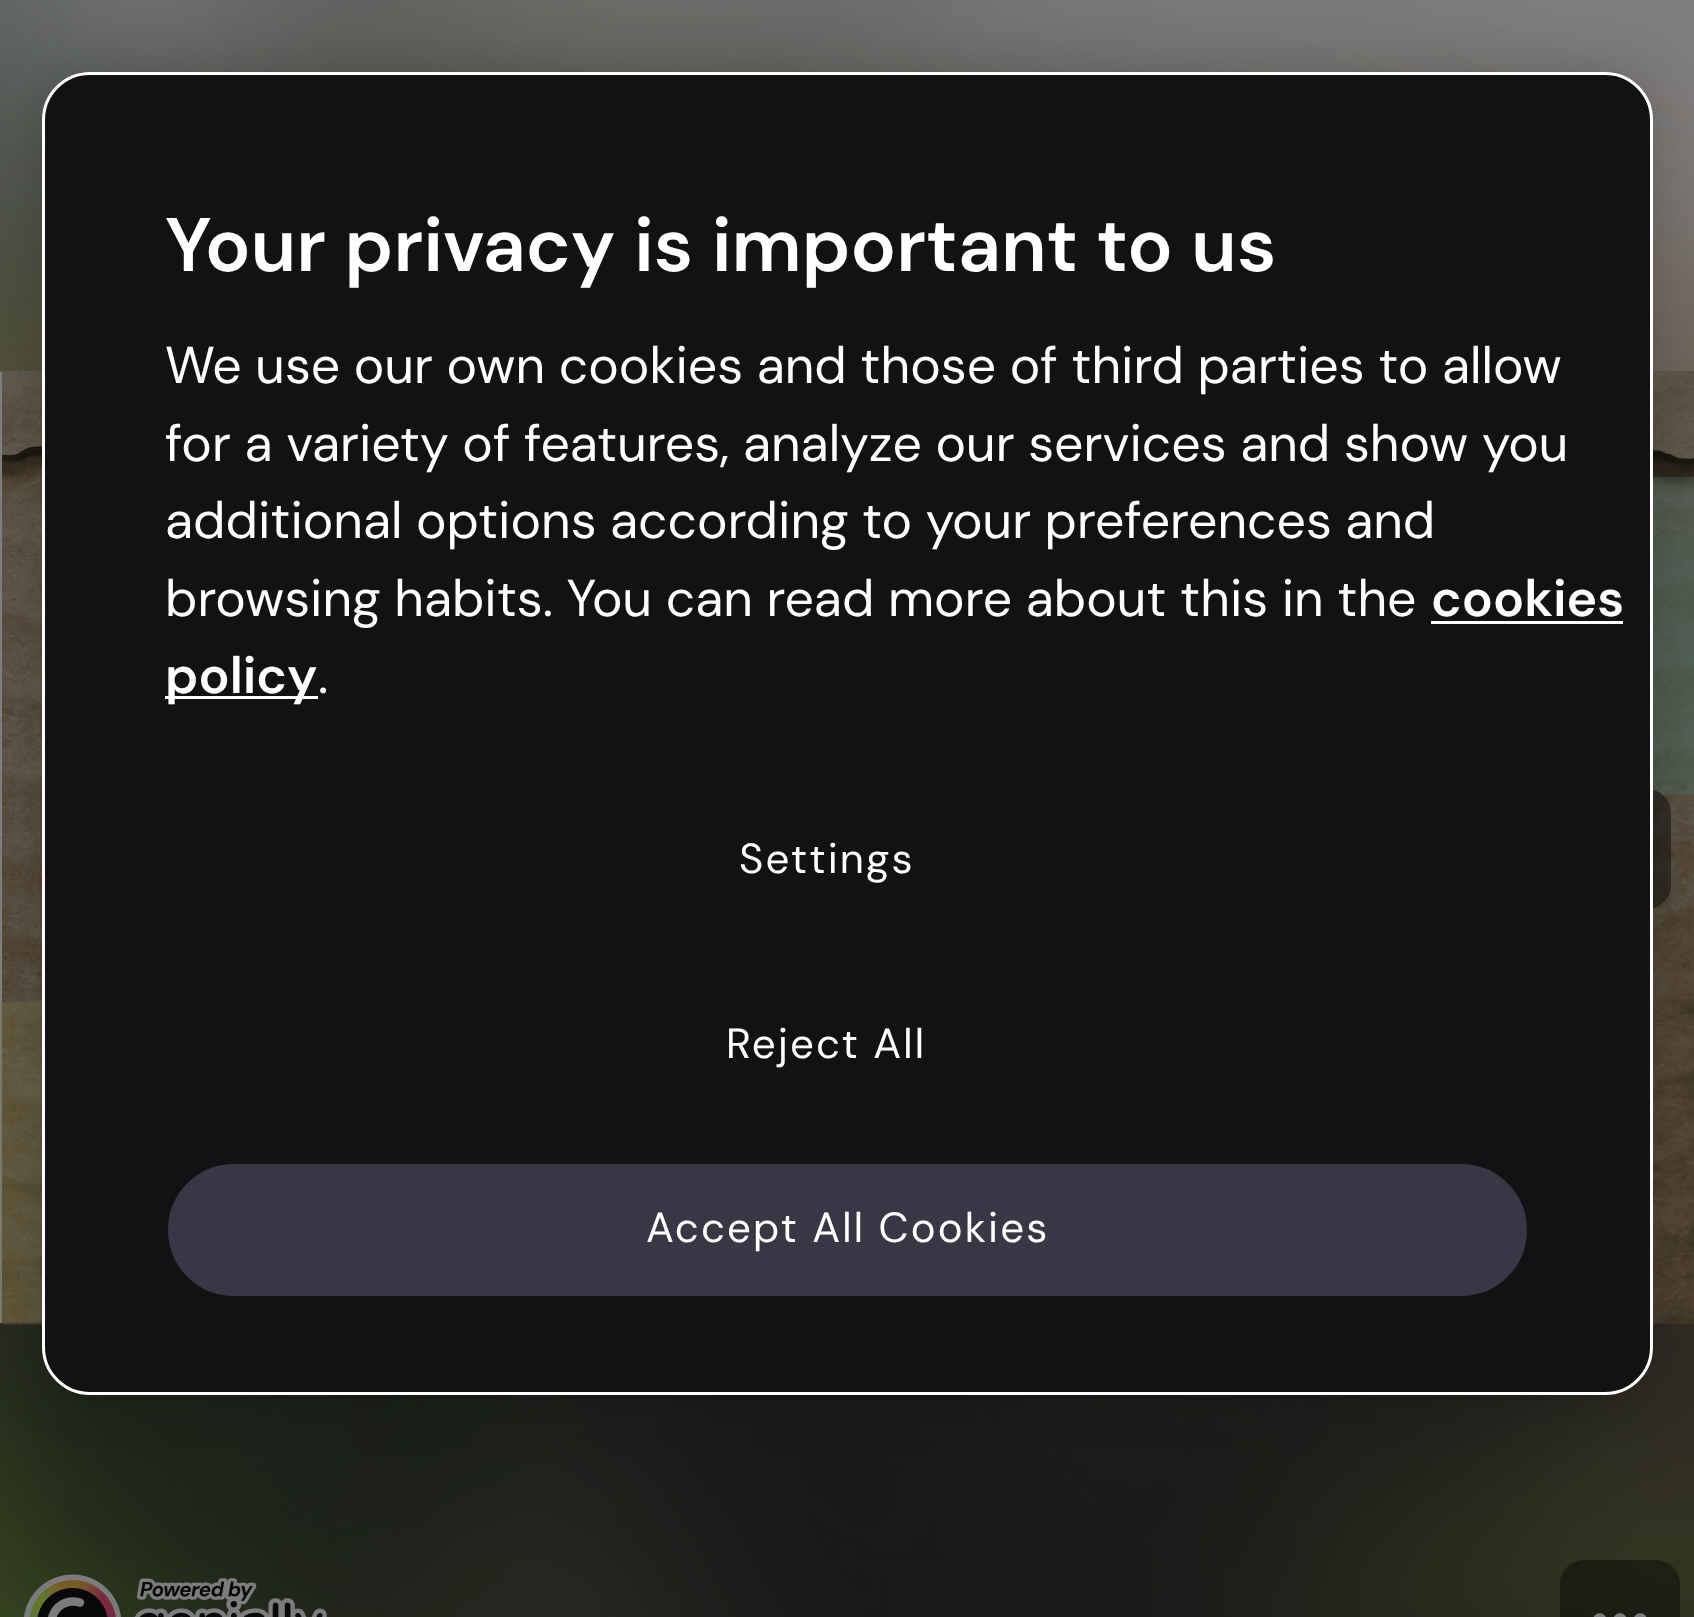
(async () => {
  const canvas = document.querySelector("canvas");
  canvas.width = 1694;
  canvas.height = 1617;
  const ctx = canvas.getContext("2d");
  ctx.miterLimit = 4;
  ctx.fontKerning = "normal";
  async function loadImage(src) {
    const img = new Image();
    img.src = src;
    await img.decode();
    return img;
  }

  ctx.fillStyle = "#ffffff";
  ctx.fillRect(0, 0, 1694, 1617);
  ctx.drawImage(await loadImage("img/1.png"), 0, 0, 1694, 1617);
  ctx.fillStyle = "#808080";
  ctx.fillRect(0, 372, 2, 951);
  ctx.drawImage(await loadImage("img/2.png"), 2, 371, 1692, 954);
  for (const [x, y, w, h, color] of [
    [1653, 537, 41, 243, "rgba(77, 92, 71, 0.34)"],
    [1653, 477, 41, 318, "rgba(72, 119, 114, 0.34)"],
    [0, 1002, 42, 320, "rgba(120, 116, 70, 0.34)"],
  ]) {
    ctx.fillStyle = color;
    ctx.fillRect(x, y, w, h);
  }
  ctx.drawImage(await loadImage("img/3.png"), 24, 1574, 303, 43);
  ctx.fillStyle = "rgba(9, 9, 9, 0.5)";
  ctx.beginPath();
  ctx.roundRect(1551, 789, 120, 120, 24);
  ctx.fill();
  ctx.beginPath();
  ctx.roundRect(1560, 1560, 120, 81, 24);
  ctx.fill();
  ctx.drawImage(await loadImage("img/4.png"), 1593, 1613, 54, 4);
  ctx.fillStyle = "rgba(0, 0, 0, 0.2)";
  ctx.filter = "blur(27px)";
  ctx.beginPath();
  ctx.roundRect(42, 72, 1611, 1323, 48);
  ctx.fill();
  ctx.filter = "none";
  ctx.fillStyle = "#121212";
  ctx.beginPath();
  ctx.roundRect(43.5, 73.5, 1608, 1320, 46.5);
  ctx.fill();
  ctx.strokeStyle = "#ffffff";
  ctx.lineWidth = 3;
  ctx.stroke();
  ctx.fillStyle = "#ffffff";
  ctx.fillRect(1431, 621, 192, 3);
  ctx.fillRect(165, 696, 153, 3);
  ctx.fillStyle = "#393645";
  ctx.beginPath();
  ctx.roundRect(166.5, 1162.5, 1362, 135, 67.5);
  ctx.fill();
  ctx.strokeStyle = "#121212";
  ctx.stroke();
  ctx.font = "600 75.6px DM Sans";
  ctx.fillStyle = "#ffffff";
  ctx.fillText("Your privacy is important to us", 165, 271);
  ctx.wordSpacing = "-0.1px";
  ctx.font = "51.65px DM Sans";
  ctx.fillText("We use our own cookies and those of third parties to allow", 165, 383);
  ctx.fillText("for a variety of features, analyze our services and show you", 165, 461);
  ctx.wordSpacing = "-0.25px";
  ctx.fillText("additional options according to your preferences and", 165, 538);
  ctx.wordSpacing = "-0.1px";
  ctx.fillText("browsing habits. You can read more about this in the", 165, 616);
  ctx.wordSpacing = "0px";
  ctx.font = "600 51.65px DM Sans";
  ctx.fillText("cookies", 1431, 616);
  ctx.fillText("policy", 165, 693);
  ctx.font = "51.65px DM Sans";
  ctx.fillText(".", 318, 693);
  ctx.letterSpacing = "2.1px";
  ctx.font = "42px DM Sans";
  for (const [text, x, y] of [
    ["Settings", 739, 873],
    ["Reject All", 726, 1058],
    ["Accept All Cookies", 646, 1242],
  ]) {
    ctx.fillText(text, x, y);
  }
})();
